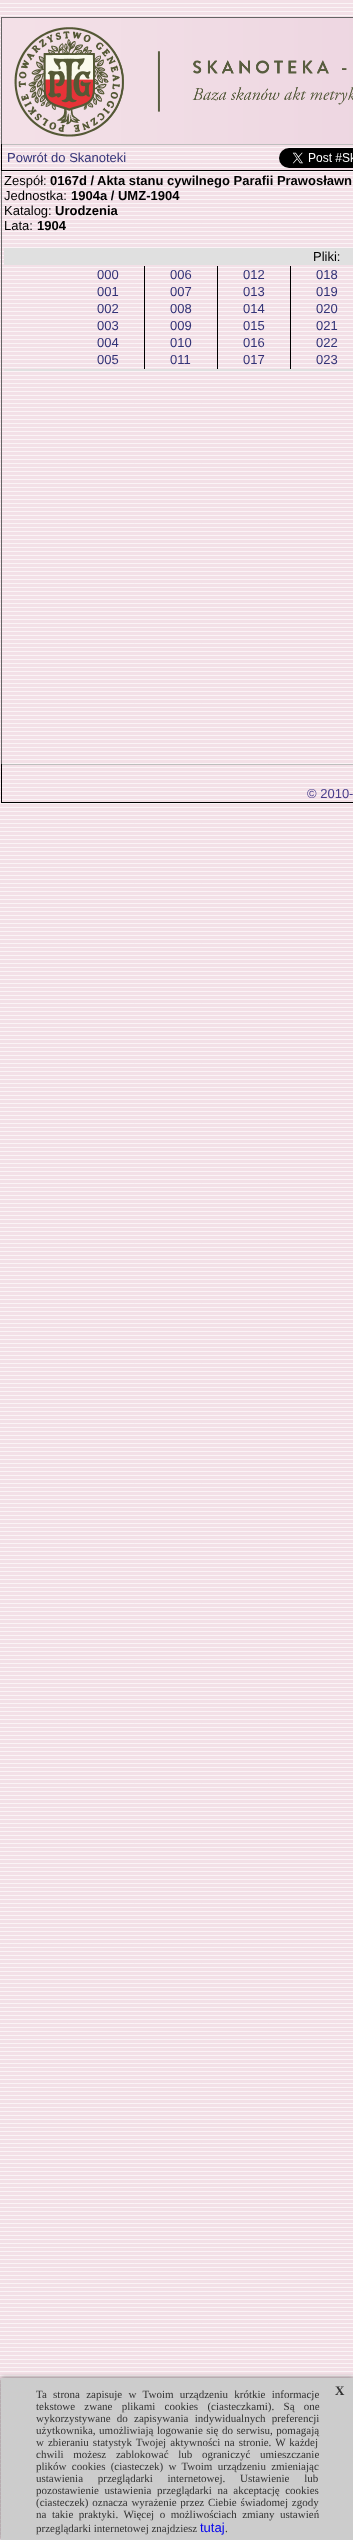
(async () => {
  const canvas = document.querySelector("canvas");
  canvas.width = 353;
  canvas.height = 2540;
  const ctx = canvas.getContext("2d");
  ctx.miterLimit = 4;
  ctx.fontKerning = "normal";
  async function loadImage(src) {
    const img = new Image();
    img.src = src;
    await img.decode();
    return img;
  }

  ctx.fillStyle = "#ffffff";
  ctx.fillRect(0, 0, 353, 2540);
  ctx.drawImage(await loadImage("img/1.png"), 0, 0, 353, 2540);
  ctx.fillStyle = "#646464";
  ctx.fillRect(1, 17, 352, 1);
  ctx.fillRect(1, 17, 1, 747);
  ctx.drawImage(await loadImage("img/2.png"), 2, 18, 351, 126);
  for (const [x, y, w, h, color] of [
    [1, 144, 352, 1, "#bebebe"],
    [1, 170, 352, 1, "#000000"],
    [1, 144, 1, 27, "#000000"],
  ]) {
    ctx.fillStyle = color;
    ctx.fillRect(x, y, w, h);
  }
  ctx.drawImage(await loadImage("img/3.png"), 279, 148, 74, 20);
  for (const [x, y, w, h, color] of [
    [4, 248, 349, 17, "#e0e0e0"],
    [144, 266, 1, 103, "#000000"],
    [217, 266, 1, 103, "#000000"],
    [290, 266, 1, 103, "#000000"],
    [4, 369, 349, 2, "#e0e0e0"],
    [1, 764, 352, 1, "#bebebe"],
    [1, 802, 352, 1, "#000000"],
    [1, 764, 1, 39, "#000000"],
  ]) {
    ctx.fillStyle = color;
    ctx.fillRect(x, y, w, h);
  }
  ctx.fillStyle = "#666666";
  ctx.filter = "blur(2.5px)";
  ctx.beginPath();
  ctx.rect(1, 2378, 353, 162);
  ctx.fill();
  ctx.filter = "none";
  ctx.fillStyle = "#cccccc";
  ctx.fillRect(1, 2378, 352, 162);
  ctx.font = "13px Liberation Sans";
  ctx.fillStyle = "#333377";
  ctx.fillText("Powrót do Skanoteki", 7, 162);
  ctx.fillStyle = "#000000";
  ctx.fillText("Zespół:", 4, 185);
  ctx.font = "bold 13px Liberation Sans";
  ctx.fillText("0167d /", 50, 185);
  ctx.fillText("Akta stanu cywilnego Parafii Prawosławn", 97, 185);
  ctx.font = "13px Liberation Sans";
  ctx.fillText("Jednostka:", 4, 200);
  ctx.font = "bold 13px Liberation Sans";
  ctx.fillText("1904a / UMZ-1904", 71, 200);
  ctx.font = "13px Liberation Sans";
  ctx.fillText("Katalog:", 4, 215);
  ctx.font = "bold 13px Liberation Sans";
  ctx.fillText("Urodzenia", 55, 215);
  ctx.font = "13px Liberation Sans";
  ctx.fillText("Lata:", 4, 230);
  ctx.font = "bold 13px Liberation Sans";
  ctx.fillText("1904", 37, 230);
  ctx.font = "13px Liberation Sans";
  ctx.fillText("Pliki:", 313, 261);
  ctx.fillStyle = "#333377";
  for (const [text, x, y] of [
    ["000", 97, 279],
    ["006", 170, 279],
    ["012", 243, 279],
    ["018", 316, 279],
    ["001", 97, 296],
    ["007", 170, 296],
    ["013", 243, 296],
    ["019", 316, 296],
    ["002", 97, 313],
    ["008", 170, 313],
    ["014", 243, 313],
    ["020", 316, 313],
    ["003", 97, 330],
    ["009", 170, 330],
    ["015", 243, 330],
    ["021", 316, 330],
    ["004", 97, 347],
    ["010", 170, 347],
    ["016", 243, 347],
    ["022", 316, 347],
    ["005", 97, 364],
    ["011", 170, 364],
    ["017", 243, 364],
    ["023", 316, 364],
  ]) {
    ctx.fillText(text, x, y);
  }
  ctx.fillStyle = "#483d8b";
  ctx.fillText("© 2010-", 307, 798);
  ctx.wordSpacing = "3.5px";
  ctx.font = "11px Liberation Serif";
  ctx.fillStyle = "#333333";
  ctx.fillText("Ta strona zapisuje w Twoim urządzeniu krótkie informacje", 36, 2398);
  ctx.wordSpacing = "0px";
  ctx.font = "bold 13px Liberation Serif";
  ctx.fillText("X", 335, 2395);
  ctx.wordSpacing = "6.5px";
  ctx.font = "11px Liberation Serif";
  ctx.fillText("tekstowe zwane plikami cookies (ciasteczkami). Są one", 36, 2410);
  ctx.wordSpacing = "3.5px";
  ctx.fillText("wykorzystywane do zapisywania indywidualnych preferencji", 36, 2422);
  ctx.wordSpacing = "0.75px";
  ctx.fillText("użytkownika, umożliwiają logowanie się do serwisu, pomagają", 36, 2434);
  ctx.wordSpacing = "1.25px";
  ctx.fillText("w zbieraniu statystyk Twojej aktywności na stronie. W każdej", 36, 2446);
  ctx.wordSpacing = "7px";
  ctx.fillText("chwili możesz zablokować lub ograniczyć umieszczanie", 36, 2458);
  ctx.wordSpacing = "2.5px";
  ctx.fillText("plików cookies (ciasteczek) w Twoim urządzeniu zmieniając", 36, 2470);
  ctx.wordSpacing = "12px";
  ctx.fillText("ustawienia przeglądarki internetowej. Ustawienie lub", 36, 2482);
  ctx.wordSpacing = "2.75px";
  ctx.fillText("pozostawienie ustawienia przeglądarki na akceptację cookies", 36, 2494);
  ctx.wordSpacing = "1px";
  ctx.fillText("(ciasteczek) oznacza wyrażenie przez Ciebie świadomej zgody", 36, 2506);
  ctx.wordSpacing = "2.75px";
  ctx.fillText("na takie praktyki. Więcej o możliwościach zmiany ustawień", 36, 2518);
  ctx.wordSpacing = "0px";
  ctx.fillText("przeglądarki internetowej znajdziesz", 36, 2532);
  ctx.font = "13px Liberation Sans";
  ctx.fillStyle = "#0000ee";
  ctx.fillText("tutaj", 200, 2532);
  ctx.font = "11px Liberation Serif";
  ctx.fillStyle = "#333333";
  ctx.fillText(".", 225, 2532);
})();
